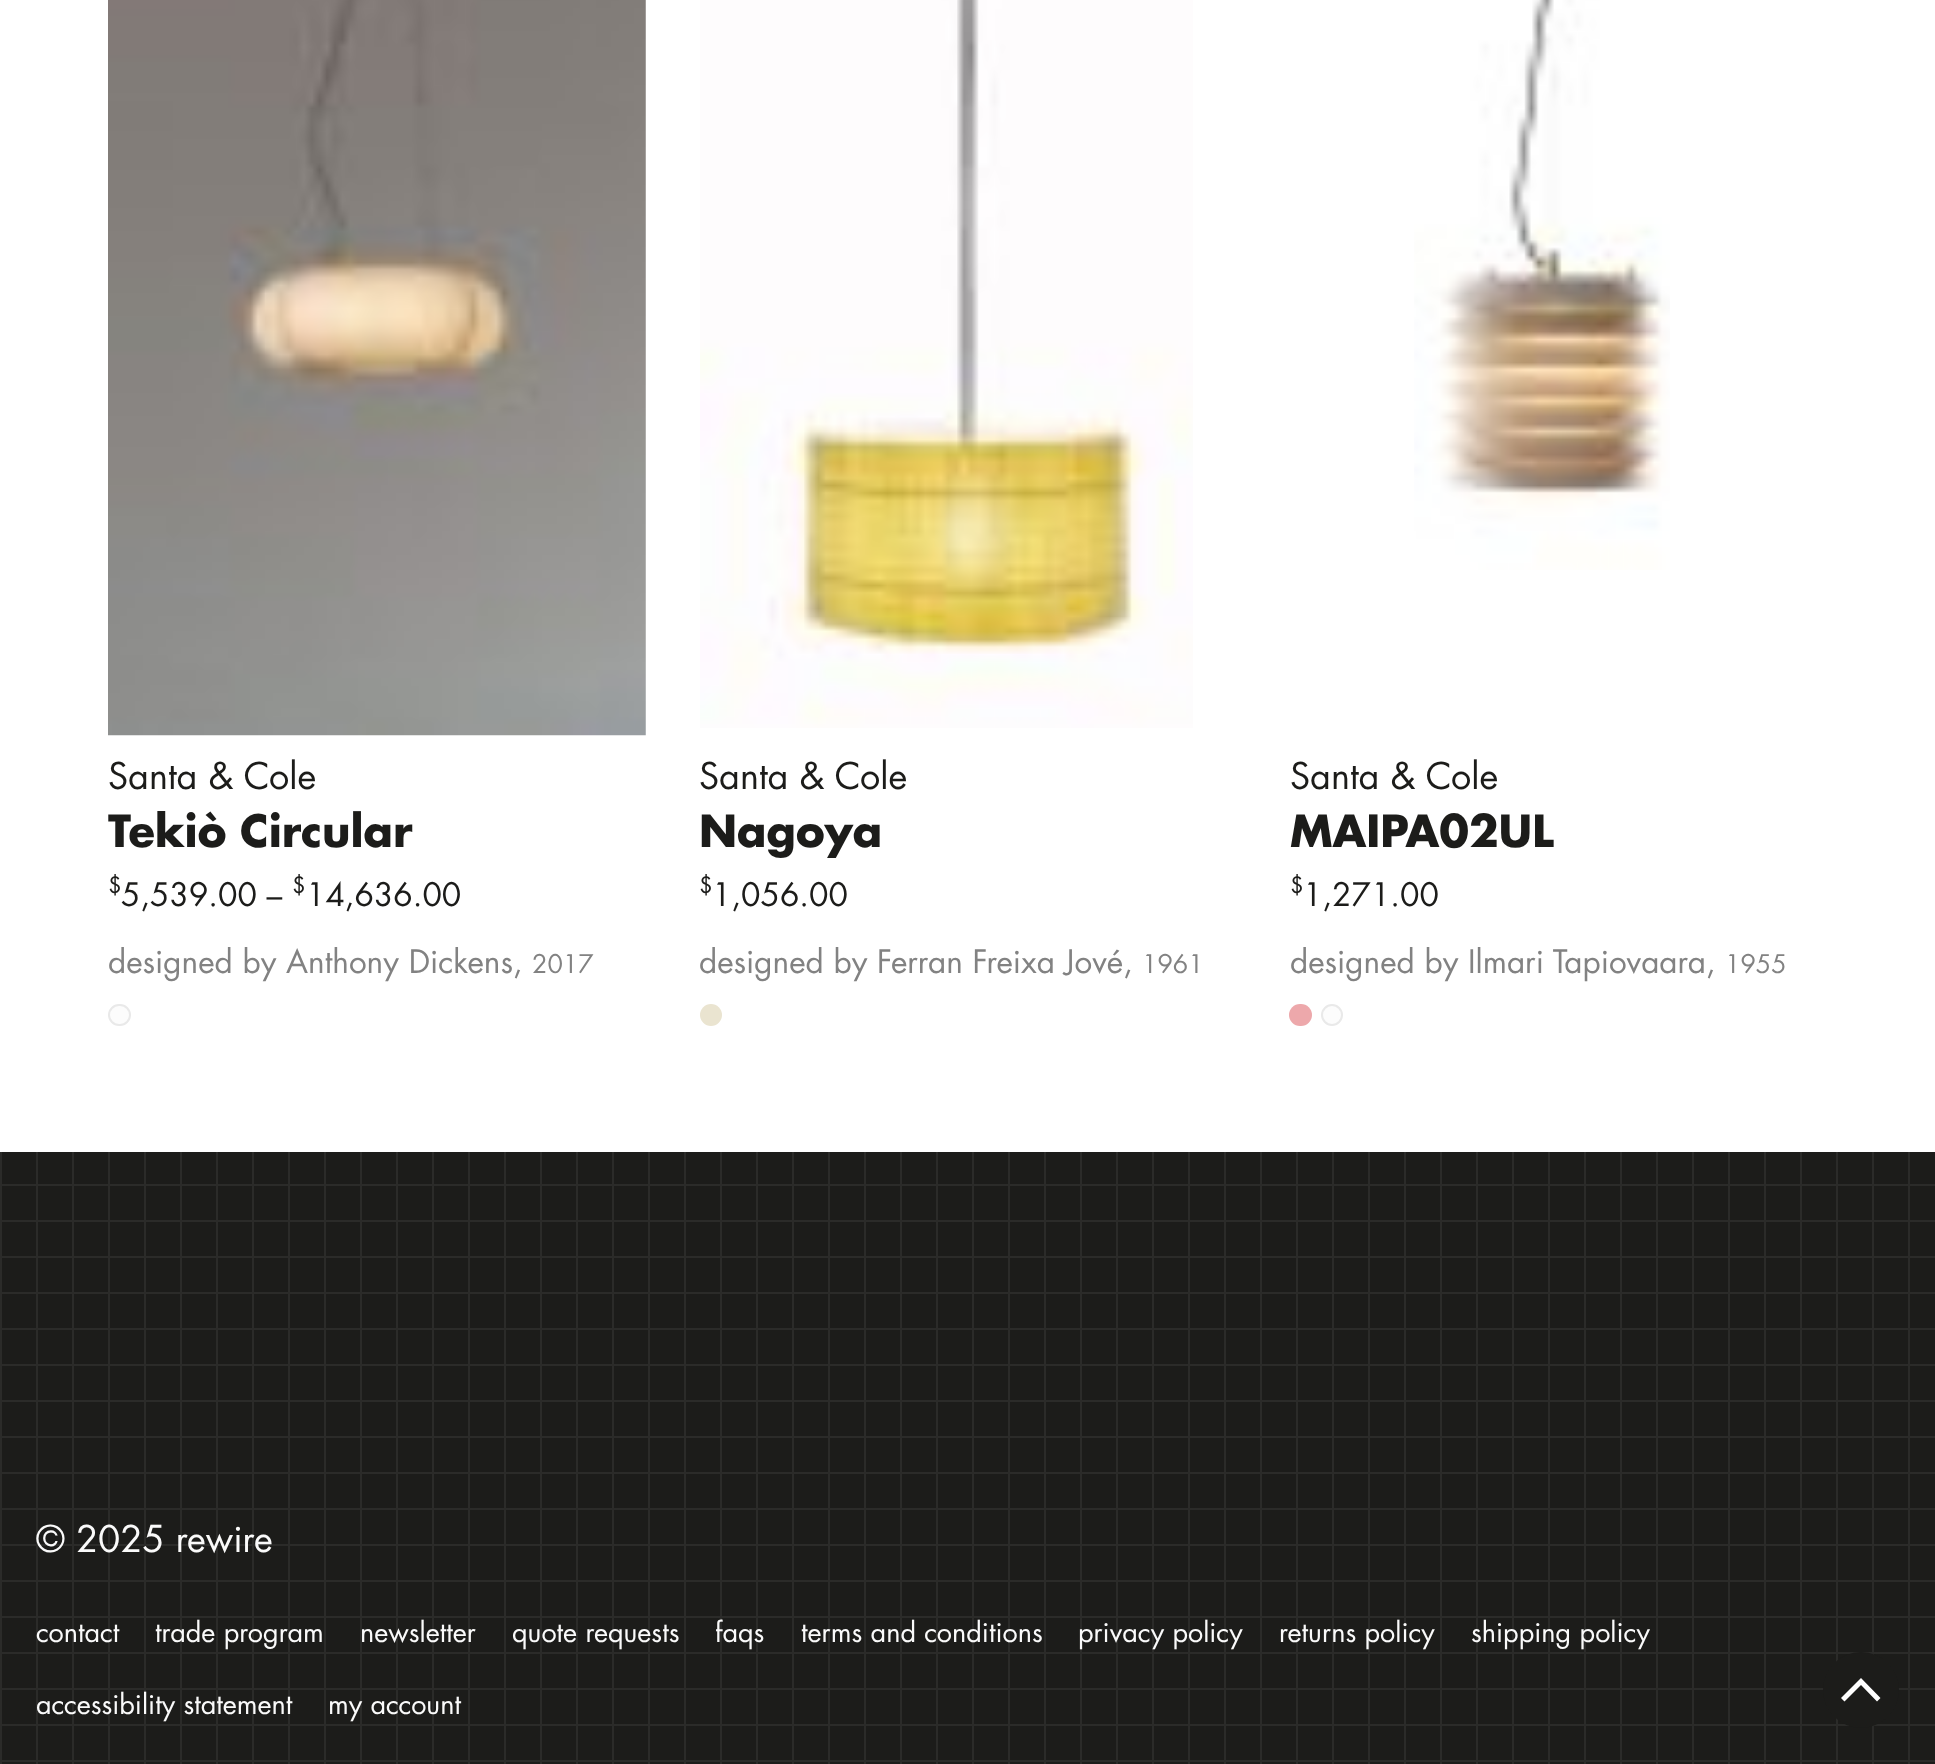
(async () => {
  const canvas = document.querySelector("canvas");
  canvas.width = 1935;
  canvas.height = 1764;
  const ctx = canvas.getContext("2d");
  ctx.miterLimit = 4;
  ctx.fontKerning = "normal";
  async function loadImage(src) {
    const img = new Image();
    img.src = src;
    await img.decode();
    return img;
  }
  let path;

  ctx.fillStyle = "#1c1c1a";
  ctx.fillRect(0, 0, 1935, 1764);
  ctx.drawImage(await loadImage("img/1.png"), 2, 1184, 1933, 578);
  ctx.drawImage(await loadImage("img/2.png"), 0, 1152, 1910, 612);
  ctx.fillStyle = "#ffffff";
  ctx.fillRect(0, 0, 1935, 1152);
  ctx.drawImage(await loadImage("img/3.png"), 108, 0, 538, 736);
  ctx.fillStyle = "#fcfcfc";
  ctx.beginPath();
  ctx.roundRect(109, 1005, 21, 20, 10);
  ctx.fill();
  ctx.strokeStyle = "#e9e9e9";
  ctx.lineWidth = 2;
  ctx.stroke();
  ctx.drawImage(await loadImage("img/4.png"), 700, 0, 493, 728);
  ctx.fillStyle = "#eae4d0";
  ctx.beginPath();
  ctx.arc(711, 1015, 11, 0, Math.PI * 2);
  ctx.fill();
  ctx.drawImage(await loadImage("img/5.png"), 1414, 0, 256, 570);
  ctx.fillStyle = "#eda8ab";
  ctx.beginPath();
  ctx.roundRect(1289, 1004, 23, 22, 11);
  ctx.fill();
  ctx.fillStyle = "#fcfcfc";
  ctx.beginPath();
  ctx.arc(1332, 1015, 10, 0, Math.PI * 2);
  ctx.fill();
  ctx.stroke();
  ctx.fillStyle = "#1c1c1a";
  ctx.beginPath();
  ctx.arc(1861, 1690, 38, 0, Math.PI * 2);
  ctx.fill();
  ctx.fillStyle = "#ffffff";
  path = new Path2D("M1877 1701.5L1861 1685L1844.5 1701.5L1841 1698L1861 1678L1880.5 1698Z");
  ctx.fill(path);
  ctx.font = "36px Futura";
  ctx.fillStyle = "#1c1c1a";
  ctx.fillText("Santa & Cole", 108, 789);
  ctx.font = "bold 43.25px Futura";
  ctx.fillText("Tekiò Circular", 108, 847);
  ctx.font = "22px Futura";
  ctx.fillText("$", 108, 893);
  ctx.font = "31.5px Futura";
  ctx.fillText("5,539.00 –", 121, 906);
  ctx.font = "22px Futura";
  ctx.fillText("$", 292, 893);
  ctx.font = "31.5px Futura";
  ctx.fillText("14,636.00", 306, 906);
  ctx.fillStyle = "#828282";
  ctx.fillText("designed by Anthony Dickens,", 108, 973);
  ctx.font = "25px Futura";
  ctx.fillText("2017", 532, 973);
  ctx.font = "36px Futura";
  ctx.fillStyle = "#1c1c1a";
  ctx.fillText("Santa & Cole", 699, 789);
  ctx.font = "bold 43.25px Futura";
  ctx.fillText("Nagoya", 699, 847);
  ctx.font = "22px Futura";
  ctx.fillText("$", 699, 893);
  ctx.font = "31.5px Futura";
  ctx.fillText("1,056.00", 712, 906);
  ctx.fillStyle = "#828282";
  ctx.fillText("designed by Ferran Freixa Jové,", 699, 973);
  ctx.font = "25px Futura";
  ctx.fillText("1961", 1142, 973);
  ctx.font = "36px Futura";
  ctx.fillStyle = "#1c1c1a";
  ctx.fillText("Santa & Cole", 1290, 789);
  ctx.font = "bold 43.25px Futura";
  ctx.fillText("MAIPA02UL", 1290, 847);
  ctx.font = "22px Futura";
  ctx.fillText("$", 1290, 893);
  ctx.font = "31.5px Futura";
  ctx.fillText("1,271.00", 1303, 906);
  ctx.fillStyle = "#828282";
  ctx.fillText("designed by Ilmari Tapiovaara,", 1290, 973);
  ctx.font = "25px Futura";
  ctx.fillText("1955", 1725, 973);
  ctx.font = "36px Futura";
  ctx.fillStyle = "#fafafa";
  ctx.fillText("© 2025 rewire", 36, 1552);
  ctx.font = "27px Futura";
  for (const [text, x, y] of [
    ["contact", 36, 1642],
    ["trade program", 155, 1642],
    ["newsletter", 360, 1642],
    ["quote requests", 512, 1642],
    ["faqs", 715, 1642],
    ["terms and conditions", 801, 1642],
    ["privacy policy", 1078, 1642],
    ["returns policy", 1279, 1642],
    ["shipping policy", 1471, 1642],
    ["accessibility statement", 36, 1714],
    ["my account", 328, 1714],
  ]) {
    ctx.fillText(text, x, y);
  }
})();
